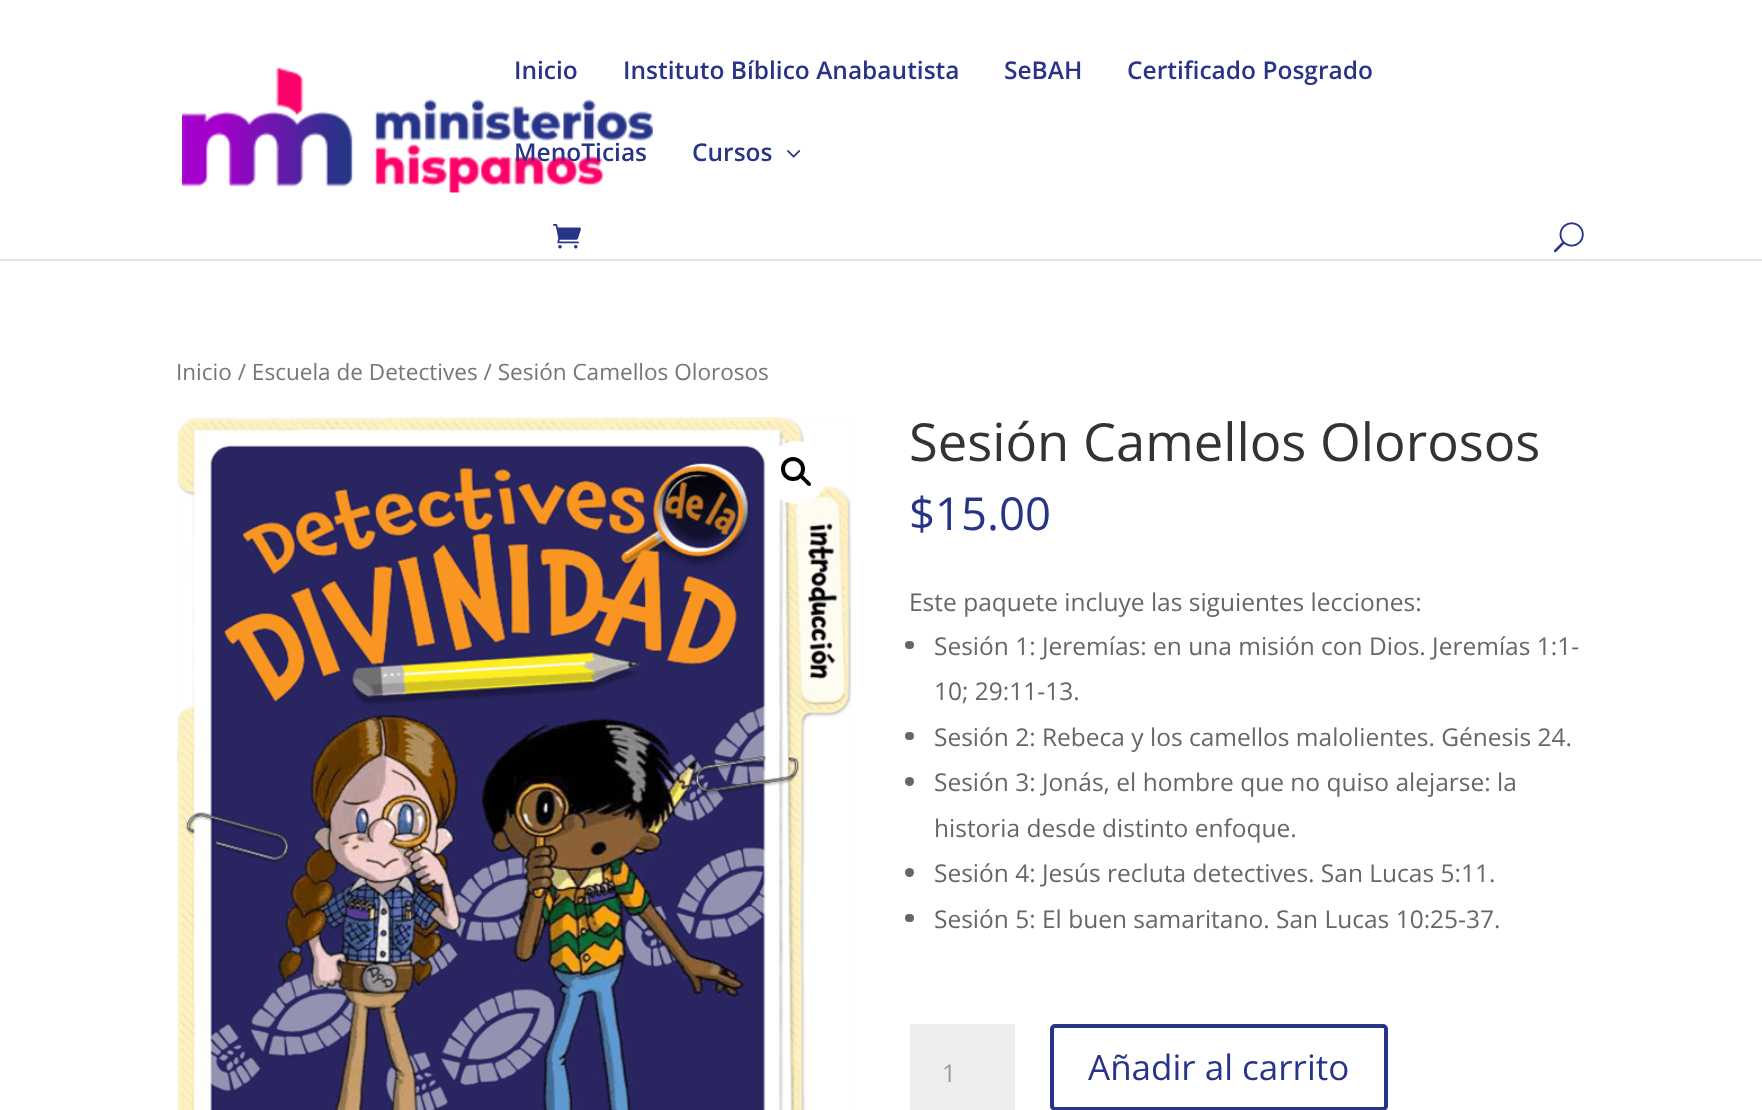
(async () => {
  const canvas = document.querySelector("canvas");
  canvas.width = 1762;
  canvas.height = 1110;
  const ctx = canvas.getContext("2d");
  ctx.miterLimit = 4;
  ctx.fontKerning = "normal";
  async function loadImage(src) {
    const img = new Image();
    img.src = src;
    await img.decode();
    return img;
  }
  let path;

  ctx.fillStyle = "#ffffff";
  ctx.fillRect(0, 0, 1762, 1110);
  ctx.fillStyle = "#e6e6e6";
  ctx.fillRect(0, 259, 1762, 2);
  ctx.drawImage(await loadImage("img/1.png"), 182, 67, 471, 126);
  ctx.drawImage(await loadImage("img/2.png"), 787, 150, 14, 8);
  ctx.drawImage(await loadImage("img/3.png"), 553, 224, 28, 25);
  ctx.drawImage(await loadImage("img/4.png"), 1553, 222, 31, 31);
  ctx.drawImage(await loadImage("img/5.png"), 177, 417, 675, 693);
  ctx.fillStyle = "#ffffff";
  ctx.beginPath();
  ctx.arc(796.5, 472.5, 31.5, 0, Math.PI * 2);
  ctx.fill();
  ctx.beginPath();
  ctx.arc(793, 469, 10, 0, Math.PI * 2);
  ctx.strokeStyle = "#000000";
  ctx.lineWidth = 4;
  ctx.stroke();
  ctx.fillStyle = "#000000";
  path = new Path2D("M800.5 475.5C802.5 473.5 806 478.5 807 479.5C808 480.5 812.5 483.5 810.5 485.5C808.5 487.5 805.5 483 804.5 482C803.5 481 798.5 477.5 800.5 475.5Z");
  ctx.fill(path);
  ctx.fillStyle = "#666666";
  ctx.beginPath();
  ctx.roundRect(905, 641, 9, 8, 4);
  ctx.fill();
  ctx.beginPath();
  ctx.roundRect(905, 732, 9, 8, 4);
  ctx.fill();
  ctx.beginPath();
  ctx.arc(909.5, 781.5, 4.5, 0, Math.PI * 2);
  ctx.fill();
  ctx.beginPath();
  ctx.arc(909.5, 872.5, 4.5, 0, Math.PI * 2);
  ctx.fill();
  ctx.beginPath();
  ctx.roundRect(905, 914, 9, 8, 4);
  ctx.fill();
  ctx.fillStyle = "#eeeeee";
  ctx.fillRect(910, 1024, 105, 86);
  ctx.beginPath();
  ctx.roundRect(1052, 1026, 334, 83, 3);
  ctx.strokeStyle = "#273488";
  ctx.stroke();
  ctx.font = "600 24.5px Open Sans";
  ctx.fillStyle = "#273488";
  for (const [text, x, y] of [
    ["Inicio", 514, 79],
    ["Instituto Bíblico Anabautista", 623, 79],
    ["SeBAH", 1004, 79],
    ["Certificado Posgrado", 1127, 79],
    ["MenoTicias", 514, 161],
    ["Cursos", 692, 161],
  ]) {
    ctx.fillText(text, x, y);
  }
  ctx.font = "22.55px Open Sans";
  ctx.fillStyle = "#767676";
  ctx.fillText("Inicio / Escuela de Detectives / Sesión Camellos Olorosos", 176, 380);
  ctx.font = "52.5px Open Sans";
  ctx.fillStyle = "#333333";
  ctx.fillText("Sesión Camellos Olorosos", 909, 461);
  ctx.font = "45.5px Open Sans";
  ctx.fillStyle = "#273488";
  ctx.fillText("$15.00", 909, 530);
  ctx.font = "24.5px Open Sans";
  ctx.fillStyle = "#666666";
  for (const [text, x, y] of [
    ["Este paquete incluye las siguientes lecciones:", 909, 611],
    ["Sesión 1: Jeremías: en una misión con Dios. Jeremías 1:1-", 934, 655],
    ["10; 29:11-13.", 934, 700],
    ["Sesión 2: Rebeca y los camellos malolientes. Génesis 24.", 934, 746],
    ["Sesión 3: Jonás, el hombre que no quiso alejarse: la", 934, 791],
    ["historia desde distinto enfoque.", 934, 837],
    ["Sesión 4: Jesús recluta detectives. San Lucas 5:11.", 934, 882],
    ["Sesión 5: El buen samaritano. San Lucas 10:25-37.", 934, 928],
  ]) {
    ctx.fillText(text, x, y);
  }
  ctx.fillStyle = "#999999";
  ctx.fillText("1", 942, 1082);
  ctx.font = "35px Open Sans";
  ctx.fillStyle = "#273488";
  ctx.fillText("Añadir al carrito", 1088, 1080);
})();
